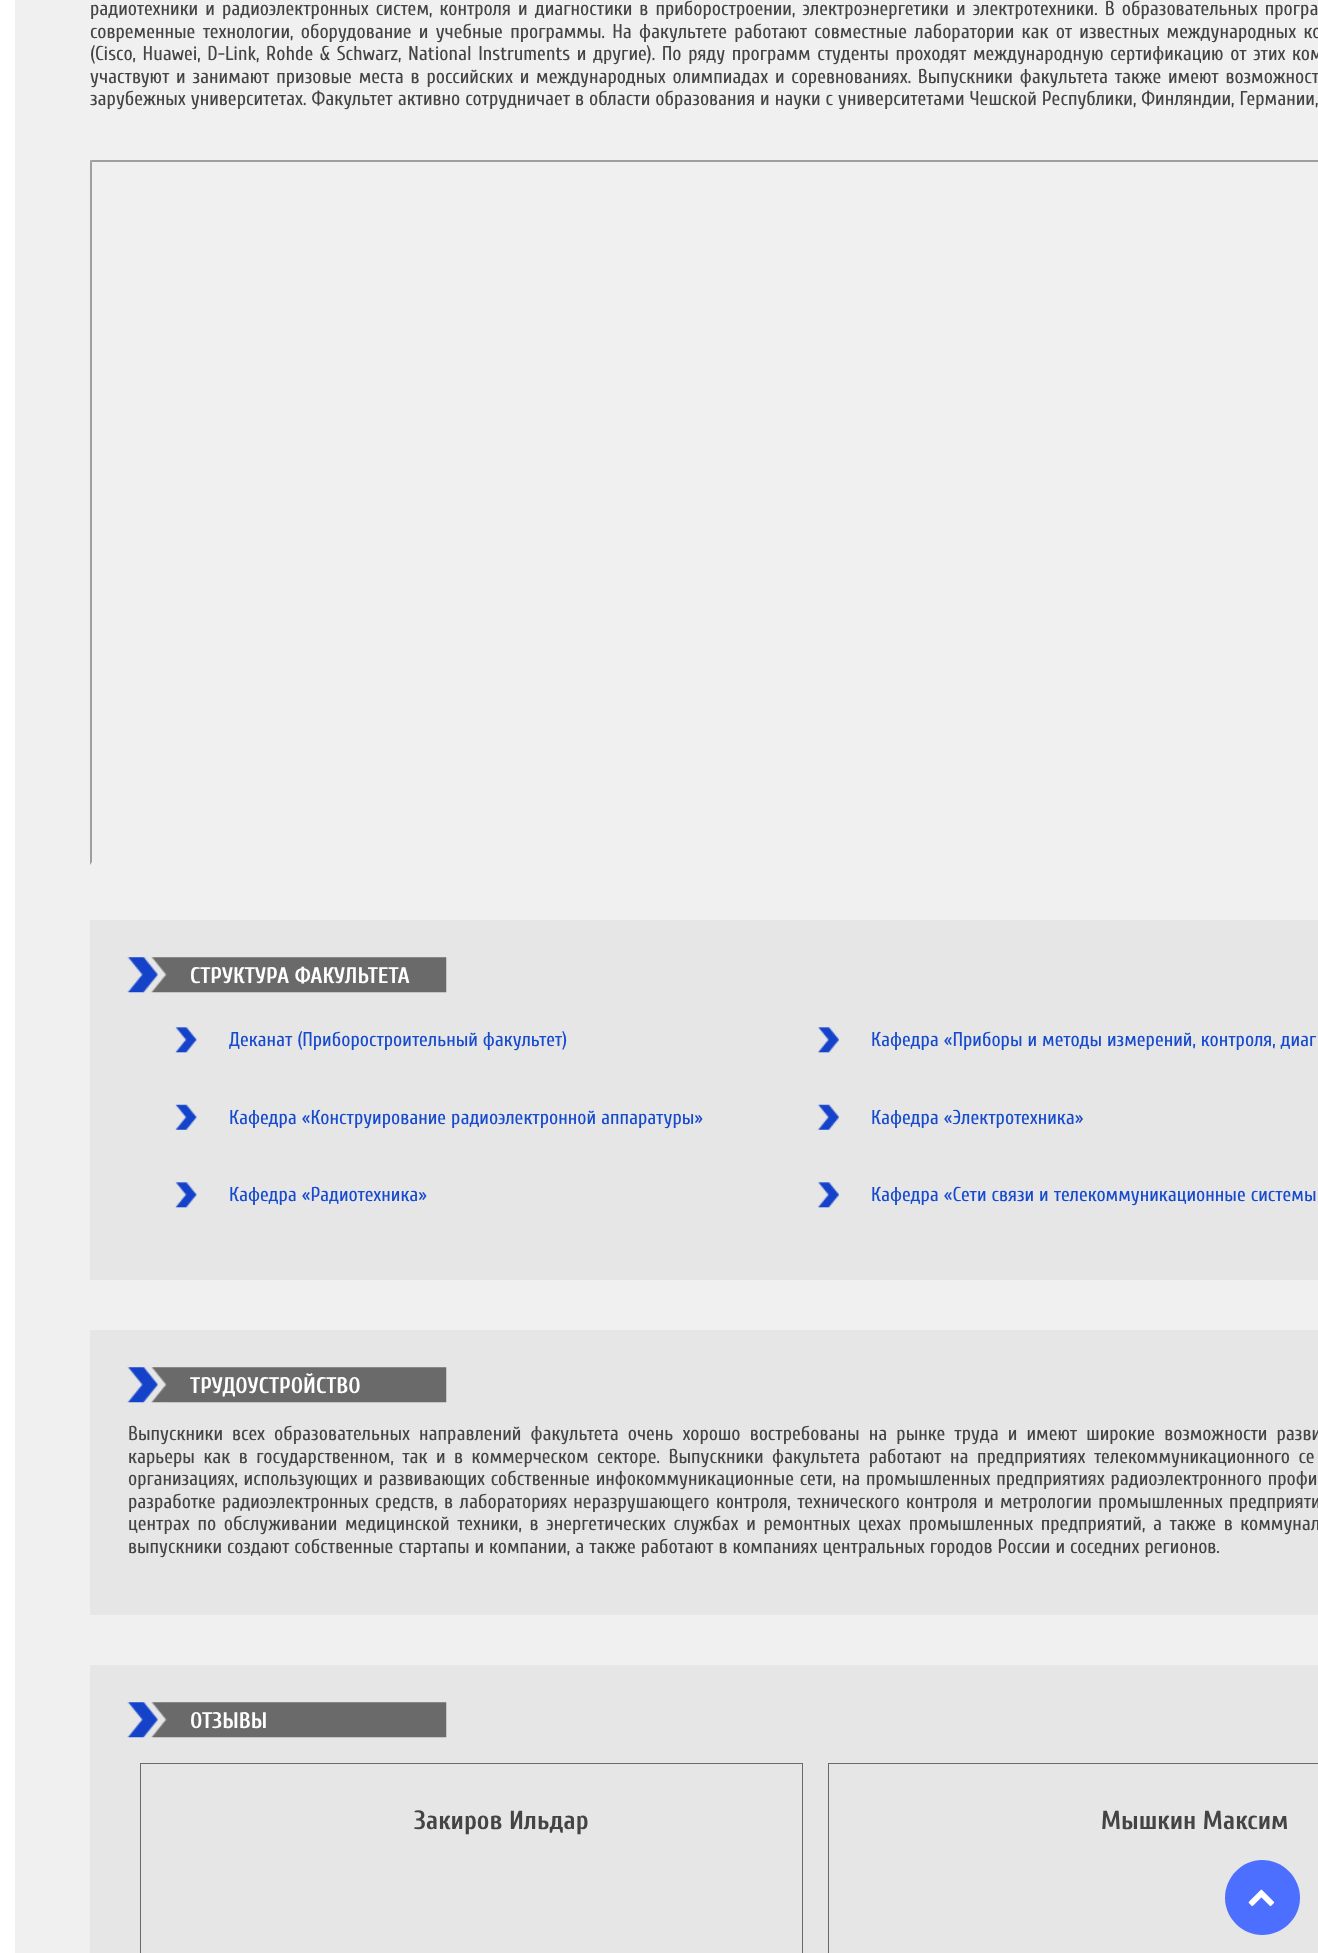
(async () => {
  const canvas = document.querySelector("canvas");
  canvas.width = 1318;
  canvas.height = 1953;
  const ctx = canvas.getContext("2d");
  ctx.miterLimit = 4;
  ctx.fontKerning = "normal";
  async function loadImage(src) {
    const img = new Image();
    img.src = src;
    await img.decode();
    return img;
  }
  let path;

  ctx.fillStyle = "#ffffff";
  ctx.fillRect(0, 0, 1318, 1953);
  ctx.fillStyle = "#f0f0f0";
  ctx.fillRect(15, 0, 1303, 1953);
  ctx.fillStyle = "#9f9f9f";
  path = new Path2D("M90 160H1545L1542 162H92Z");
  ctx.fill(path);
  path = new Path2D("M90 865V160L92 162V862Z");
  ctx.fill(path);
  ctx.fillStyle = "#e6e6e6";
  ctx.fillRect(90, 920, 1228, 360);
  ctx.drawImage(await loadImage("img/1.png"), 127, 957, 320, 36);
  ctx.drawImage(await loadImage("img/2.png"), 175, 1027, 22, 26);
  ctx.drawImage(await loadImage("img/3.png"), 817, 1027, 22, 26);
  ctx.drawImage(await loadImage("img/4.png"), 175, 1104, 22, 26);
  ctx.drawImage(await loadImage("img/5.png"), 817, 1104, 22, 26);
  ctx.drawImage(await loadImage("img/2.png"), 175, 1182, 22, 26);
  ctx.drawImage(await loadImage("img/3.png"), 817, 1182, 22, 26);
  ctx.fillRect(90, 1330, 1228, 285);
  ctx.drawImage(await loadImage("img/6.png"), 127, 1367, 320, 36);
  ctx.fillRect(90, 1665, 1228, 288);
  ctx.drawImage(await loadImage("img/6.png"), 127, 1702, 320, 36);
  ctx.strokeStyle = "#6a6a6a";
  ctx.strokeRect(140.5, 1763.5, 662, 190);
  ctx.strokeRect(828.5, 1763.5, 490, 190);
  ctx.fillStyle = "#4d6fff";
  path = new Path2D("M1225 1898C1225 1877 1242 1860 1262 1860C1283 1860 1300 1877 1300 1898C1300 1918 1283 1935 1262 1935C1242 1935 1225 1918 1225 1898Z");
  ctx.fill(path);
  ctx.drawImage(await loadImage("img/7.png"), 1248, 1889, 27, 18);
  ctx.wordSpacing = "2.1px";
  ctx.font = "20px Cuprum";
  ctx.fillStyle = "#444444";
  ctx.fillText("радиотехники и радиоэлектронных систем, контроля и диагностики в приборостроении, электроэнергетики и электротехники. В образовательных програ", 90, 15);
  ctx.wordSpacing = "2.25px";
  ctx.fillText("современные технологии, оборудование и учебные программы. На факультете работают совместные лаборатории как от известных международных ко", 90, 38);
  ctx.wordSpacing = "1.6px";
  ctx.fillText("(Cisco, Huawei, D-Link, Rohde & Schwarz, National Instruments и другие). По ряду программ студенты проходят международную сертификацию от этих ком", 90, 60);
  ctx.wordSpacing = "1.8px";
  ctx.fillText("участвуют и занимают призовые места в российских и международных олимпиадах и соревнованиях. Выпускники факультета также имеют возможност", 90, 83);
  ctx.wordSpacing = "0px";
  ctx.fillText("зарубежных университетах. Факультет активно сотрудничает в области образования и науки с университетами Чешской Республики, Финляндии, Германии,", 90, 105);
  ctx.font = "bold 22.5px Cuprum";
  ctx.fillStyle = "#ffffff";
  ctx.fillText("СТРУКТУРА ФАКУЛЬТЕТА", 190, 983);
  ctx.font = "20px Cuprum";
  ctx.fillStyle = "#164acf";
  for (const [text, x, y] of [
    ["Деканат (Приборостроительный факультет)", 229, 1046],
    ["Кафедра «Приборы и методы измерений, контроля, диаг", 871, 1046],
    ["Кафедра «Конструирование радиоэлектронной аппаратуры»", 229, 1124],
    ["Кафедра «Электротехника»", 871, 1124],
    ["Кафедра «Радиотехника»", 229, 1201],
    ["Кафедра «Сети связи и телекоммуникационные системы", 871, 1201],
  ]) {
    ctx.fillText(text, x, y);
  }
  ctx.font = "bold 22.5px Cuprum";
  ctx.fillStyle = "#ffffff";
  ctx.fillText("ТРУДОУСТРОЙСТВО", 190, 1393);
  ctx.wordSpacing = "4.1px";
  ctx.font = "20px Cuprum";
  ctx.fillStyle = "#444444";
  ctx.fillText("Выпускники всех образовательных направлений факультета очень хорошо востребованы на рынке труда и имеют широкие возможности разви", 128, 1440);
  ctx.wordSpacing = "3.5px";
  ctx.fillText("карьеры как в государственном, так и в коммерческом секторе. Выпускники факультета работают на предприятиях телекоммуникационного се", 128, 1463);
  ctx.wordSpacing = "0.75px";
  ctx.fillText("организациях, использующих и развивающих собственные инфокоммуникационные сети, на промышленных предприятиях радиоэлектронного профи", 128, 1485);
  ctx.wordSpacing = "1.4px";
  ctx.fillText("разработке радиоэлектронных средств, в лабораториях неразрушающего контроля, технического контроля и метрологии промышленных предприяти", 128, 1508);
  ctx.wordSpacing = "2.6px";
  ctx.fillText("центрах по обслуживании медицинской техники, в энергетических службах и ремонтных цехах промышленных предприятий, а также в коммунал", 128, 1530);
  ctx.wordSpacing = "0px";
  ctx.fillText("выпускники создают собственные стартапы и компании, а также работают в компаниях центральных городов России и соседних регионов.", 128, 1553);
  ctx.font = "bold 22.5px Cuprum";
  ctx.fillStyle = "#ffffff";
  ctx.fillText("ОТЗЫВЫ", 190, 1728);
  ctx.font = "bold 26.25px Cuprum";
  ctx.fillStyle = "#444444";
  ctx.fillText("Закиров Ильдар", 414, 1829);
  ctx.fillText("Мышкин Максим", 1101, 1829);
})();
